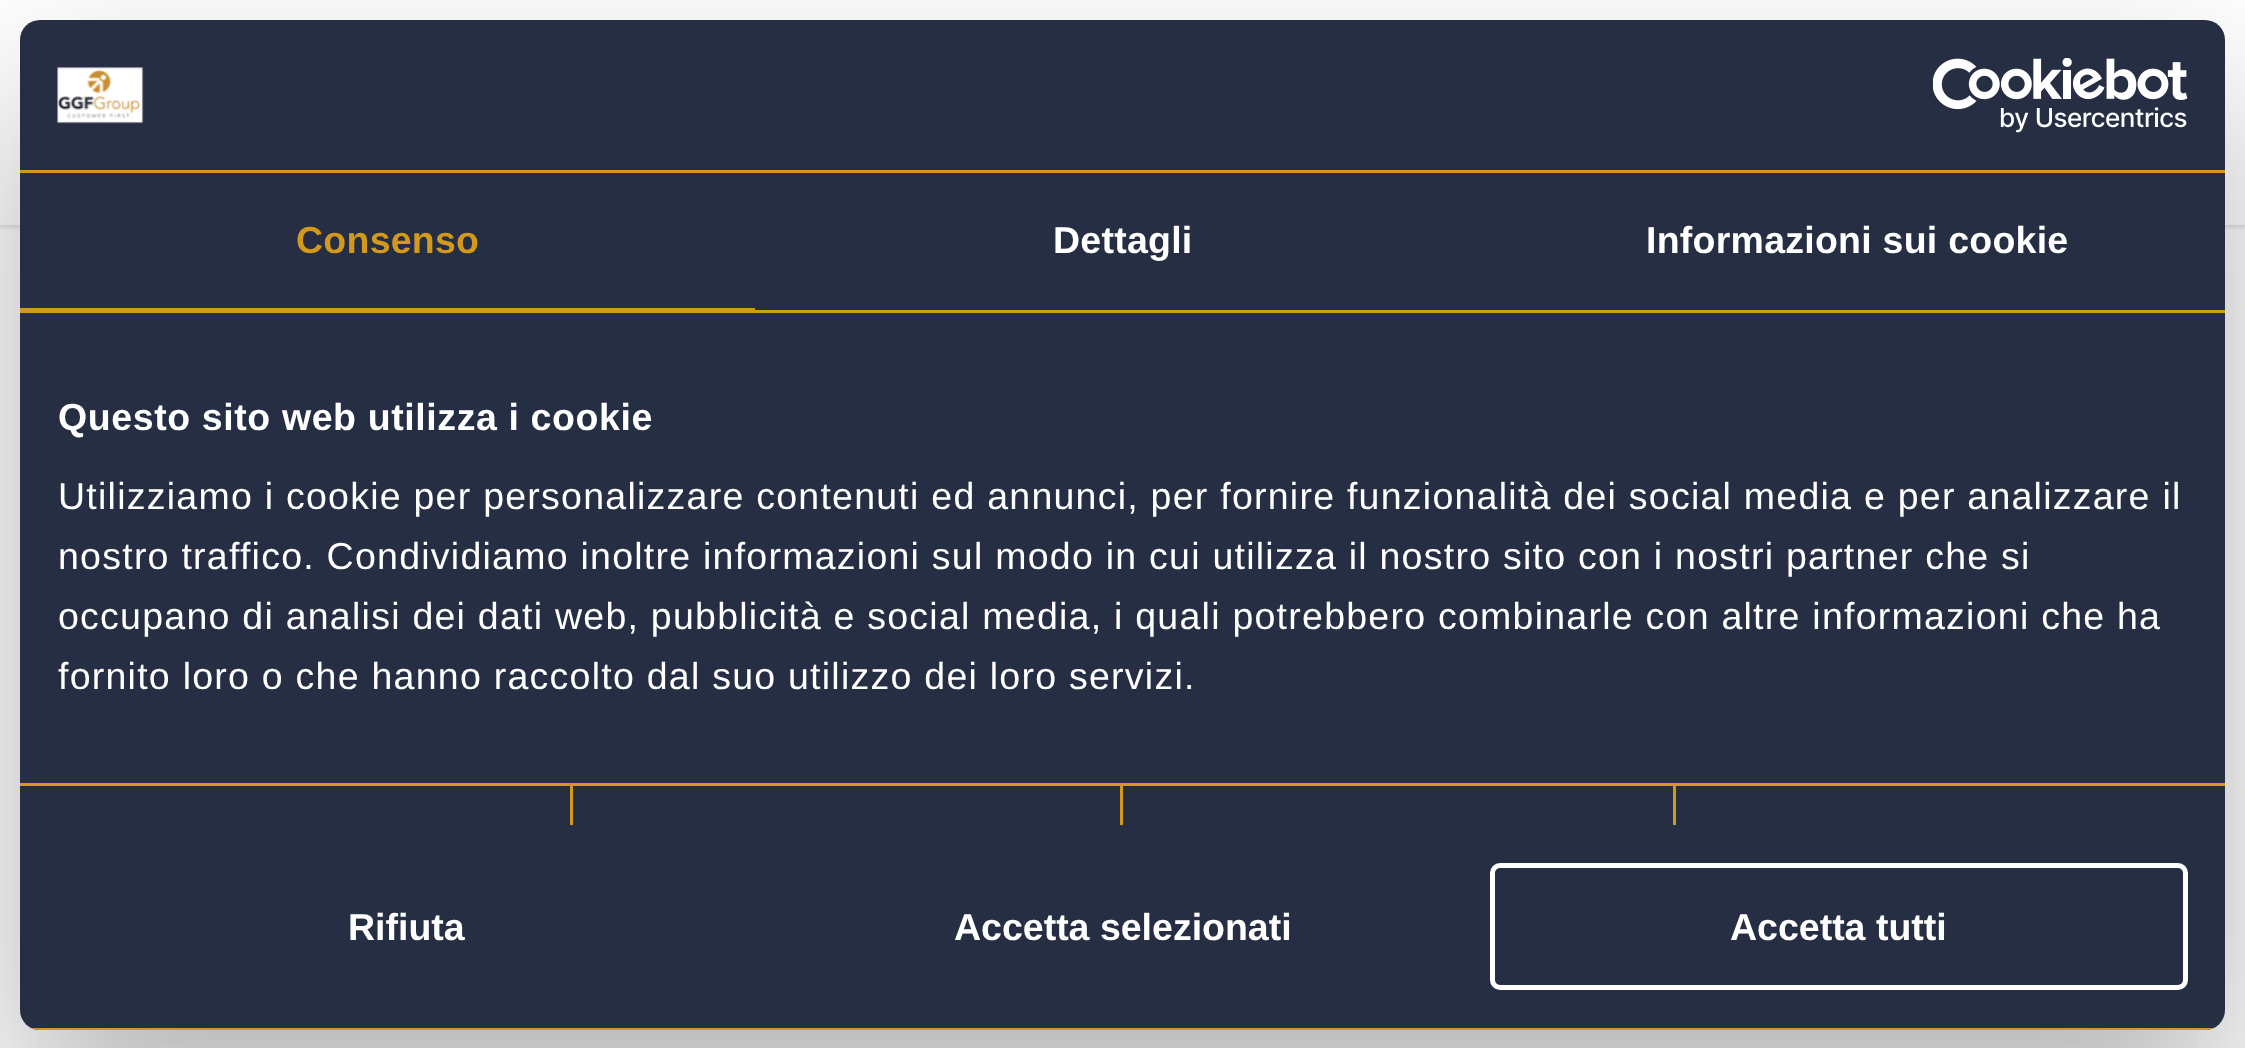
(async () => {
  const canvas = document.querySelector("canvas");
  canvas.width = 2245;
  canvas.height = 1048;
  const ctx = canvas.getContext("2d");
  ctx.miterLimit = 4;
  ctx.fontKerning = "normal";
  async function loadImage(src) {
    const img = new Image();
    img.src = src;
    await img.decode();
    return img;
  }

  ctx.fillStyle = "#ffffff";
  ctx.fillRect(0, 0, 2245, 1048);
  ctx.save();
  ctx.beginPath();
  ctx.rect(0, 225, 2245, 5);
  ctx.clip();
  ctx.fillStyle = "rgba(0, 0, 0, 0.1)";
  ctx.filter = "blur(2.5px)";
  ctx.beginPath();
  ctx.rect(-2, -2, 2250, 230);
  ctx.fill();
  ctx.filter = "none";
  ctx.restore();
  ctx.fillStyle = "rgba(0, 0, 0, 0.3)";
  ctx.filter = "blur(85px)";
  ctx.beginPath();
  ctx.roundRect(20, 100, 2205, 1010, 20);
  ctx.fill();
  ctx.filter = "none";
  ctx.fillStyle = "#252e43";
  ctx.beginPath();
  ctx.roundRect(20, 20, 2205, 1010, 20);
  ctx.fill();
  ctx.fillStyle = "#d3991c";
  ctx.fillRect(20, 170, 2205, 3);
  ctx.drawImage(await loadImage("img/1.png"), 57, 67, 87, 57);
  ctx.drawImage(await loadImage("img/2.png"), 1933, 58, 255, 75);
  for (const [x, y, w, h, color] of [
    [20, 310, 2205, 3, "#d3991c"],
    [20, 308, 735, 2, "#d3991c"],
    [570, 785, 3, 40, "#d3991c"],
    [1120, 785, 3, 40, "#d3991c"],
    [1673, 785, 3, 40, "#d3991c"],
    [20, 783, 2205, 3, "#d3991c"],
  ]) {
    ctx.fillStyle = color;
    ctx.fillRect(x, y, w, h);
  }
  ctx.save();
  ctx.beginPath();
  ctx.roundRect(20, 20, 2205, 1010, 20);
  ctx.clip();
  ctx.fillRect(31, 1028, 2183, 2);
  ctx.restore();
  ctx.beginPath();
  ctx.roundRect(1492.5, 865.5, 693, 122, 7.5);
  ctx.strokeStyle = "#ffffff";
  ctx.lineWidth = 5;
  ctx.stroke();
  ctx.letterSpacing = "0.25px";
  ctx.font = "bold 37.5px Liberation Sans";
  ctx.fillText("Consenso", 296, 253);
  ctx.fillStyle = "#ffffff";
  ctx.fillText("Dettagli", 1053, 253);
  ctx.fillText("Informazioni sui cookie", 1646, 253);
  ctx.letterSpacing = "0.6px";
  ctx.fillText("Questo sito web utilizza i cookie", 58, 430);
  ctx.letterSpacing = "1.25px";
  ctx.font = "37.5px Liberation Sans";
  for (const [text, x, y] of [
    ["Utilizziamo i cookie per personalizzare contenuti ed annunci, per fornire funzionalità dei social media e per analizzare il", 58, 509],
    ["nostro traffico. Condividiamo inoltre informazioni sul modo in cui utilizza il nostro sito con i nostri partner che si", 58, 569],
    ["occupano di analisi dei dati web, pubblicità e social media, i quali potrebbero combinarle con altre informazioni che ha", 58, 629],
    ["fornito loro o che hanno raccolto dal suo utilizzo dei loro servizi.", 58, 689],
  ]) {
    ctx.fillText(text, x, y);
  }
  ctx.letterSpacing = "0px";
  ctx.font = "bold 37.5px Liberation Sans";
  for (const [text, x, y] of [
    ["Rifiuta", 348, 940],
    ["Accetta selezionati", 954, 940],
    ["Accetta tutti", 1730, 940],
  ]) {
    ctx.fillText(text, x, y);
  }
})();
